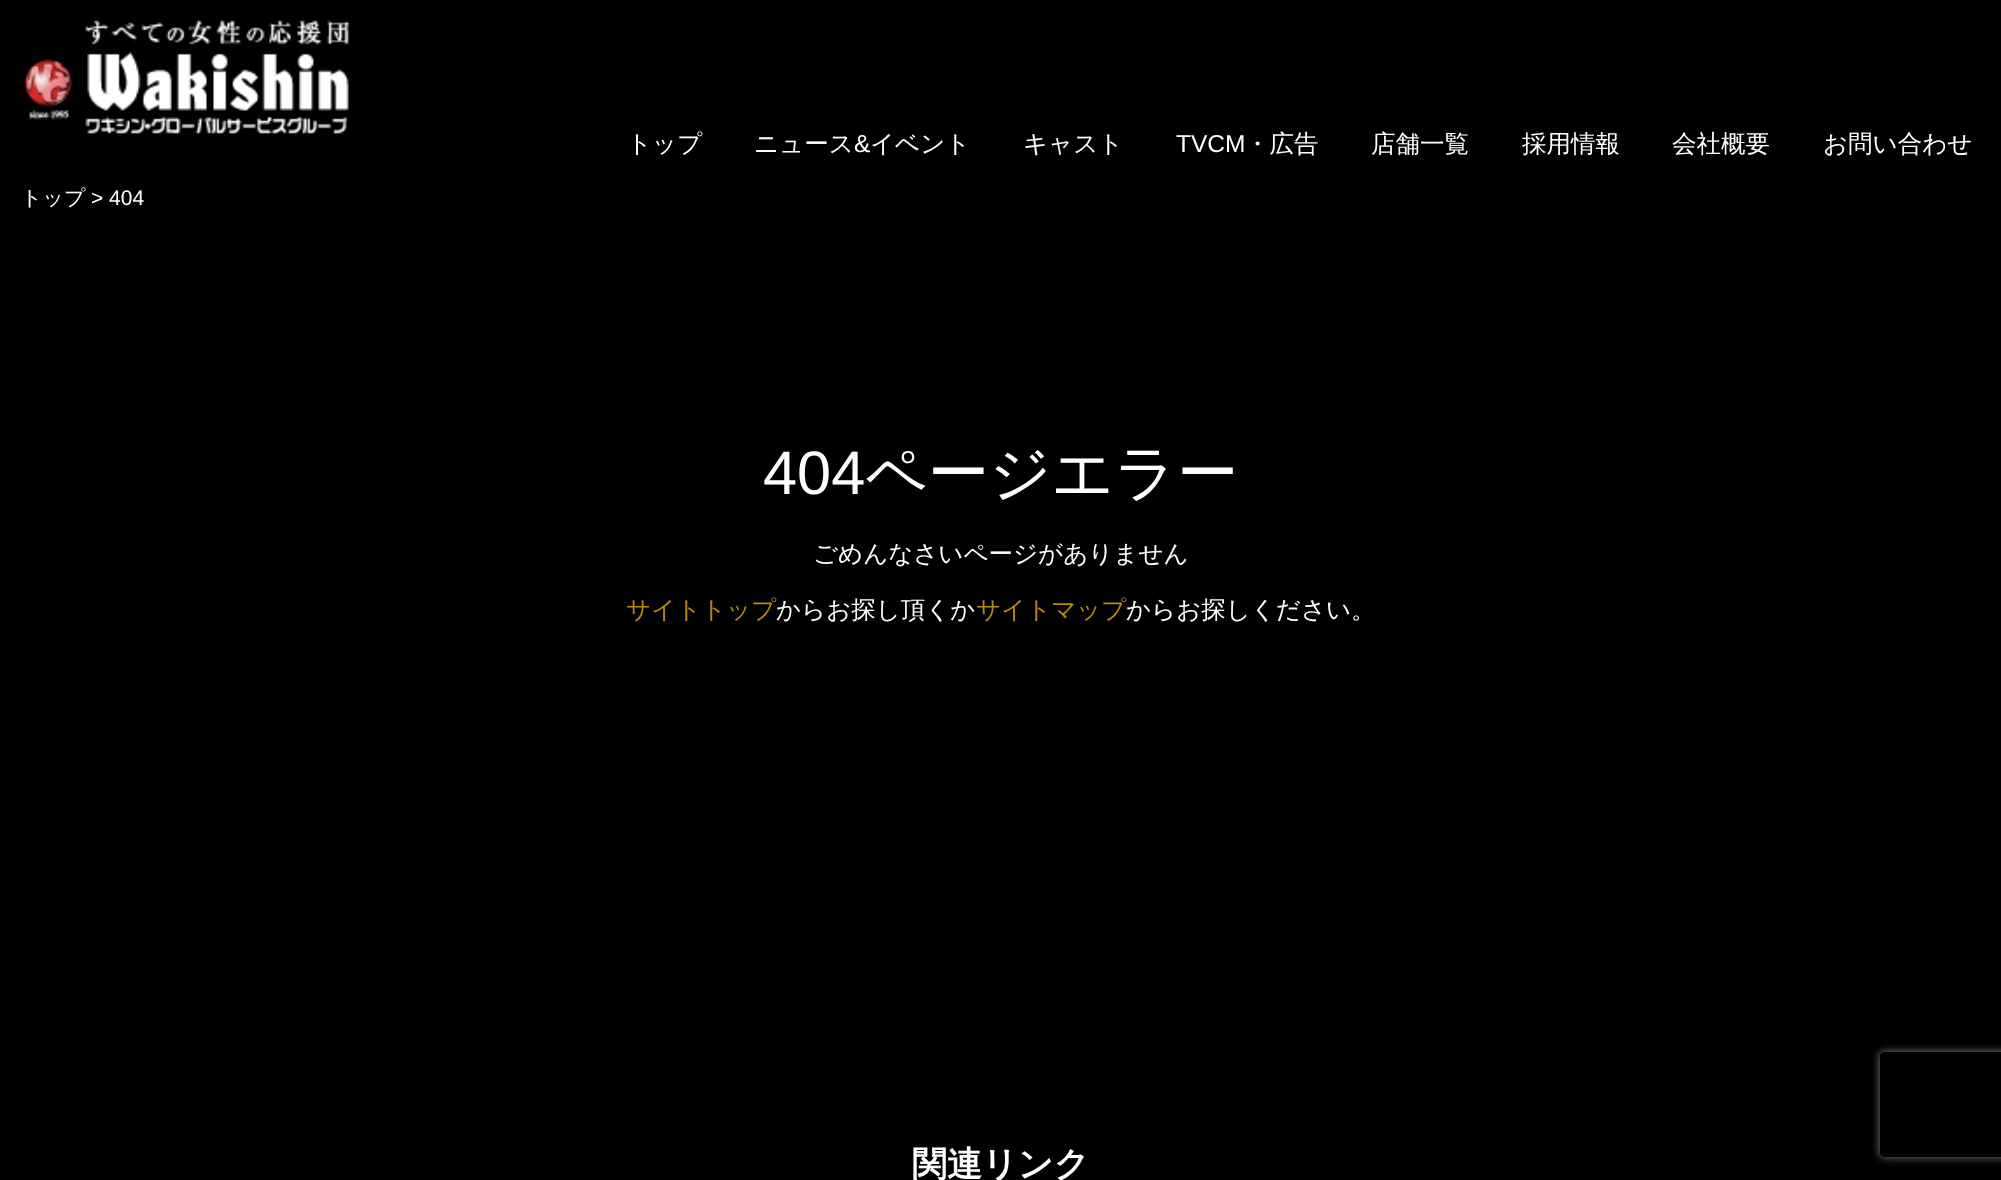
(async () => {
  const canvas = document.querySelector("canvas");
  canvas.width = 2001;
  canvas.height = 1180;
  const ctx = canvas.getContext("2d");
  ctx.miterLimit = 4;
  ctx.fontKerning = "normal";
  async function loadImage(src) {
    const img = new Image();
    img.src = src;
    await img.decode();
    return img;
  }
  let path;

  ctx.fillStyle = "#000000";
  ctx.fillRect(0, 0, 2001, 1180);
  ctx.drawImage(await loadImage("img/1.png"), 24, 20, 326, 114);
  ctx.save();
  path = new Path2D("M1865 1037H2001V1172H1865ZM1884 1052H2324C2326 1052 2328 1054 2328 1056V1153C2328 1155 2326 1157 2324 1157H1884C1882 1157 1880 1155 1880 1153V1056C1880 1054 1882 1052 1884 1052Z");
  ctx.clip(path, "evenodd");
  ctx.fillStyle = "#808080";
  ctx.filter = "blur(4.5px)";
  ctx.beginPath();
  ctx.roundRect(1880, 1052, 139, 105, 4);
  ctx.fill();
  ctx.filter = "none";
  ctx.restore();
  ctx.font = "500 24.5px WenQuanYi Zen Hei";
  ctx.fillStyle = "#ffffff";
  ctx.fillText("トップ", 627, 152);
  ctx.fillText("ニュース", 754, 152);
  ctx.font = "24.5px Liberation Sans";
  ctx.fillText("&", 854, 152);
  ctx.font = "500 24.5px WenQuanYi Zen Hei";
  ctx.fillText("イベント", 870, 152);
  ctx.fillText("キャスト", 1023, 152);
  ctx.font = "24.5px Liberation Sans";
  ctx.fillText("TVCM", 1176, 152);
  ctx.font = "500 24.5px WenQuanYi Zen Hei";
  for (const [text, x, y] of [
    ["・広告", 1245, 152],
    ["店舗一覧", 1371, 152],
    ["採用情報", 1522, 152],
    ["会社概要", 1672, 152],
    ["お問い合わせ", 1823, 152],
  ]) {
    ctx.fillText(text, x, y);
  }
  ctx.font = "500 21px WenQuanYi Zen Hei";
  ctx.fillText("トップ", 21, 205);
  ctx.font = "21px Liberation Sans";
  ctx.fillText("> 404", 91, 205);
  ctx.font = "61.25px Liberation Sans";
  ctx.fillText("404", 763, 494);
  ctx.font = "500 61.25px WenQuanYi Zen Hei";
  ctx.fillText("ページエラー", 865, 494);
  ctx.font = "500 24.5px WenQuanYi Zen Hei";
  ctx.fillText("ごめんなさいページがありません", 813, 562);
  ctx.fillStyle = "#b68a04";
  ctx.fillText("サイトトップ", 626, 618);
  ctx.fillStyle = "#ffffff";
  ctx.fillText("からお探し頂くか", 776, 618);
  ctx.fillStyle = "#b68a04";
  ctx.fillText("サイトマップ", 976, 618);
  ctx.fillStyle = "#ffffff";
  ctx.fillText("からお探しください。", 1126, 618);
  ctx.font = "bold 35px WenQuanYi Zen Hei";
  ctx.fillText("関連リンク", 912, 1176);
})();
